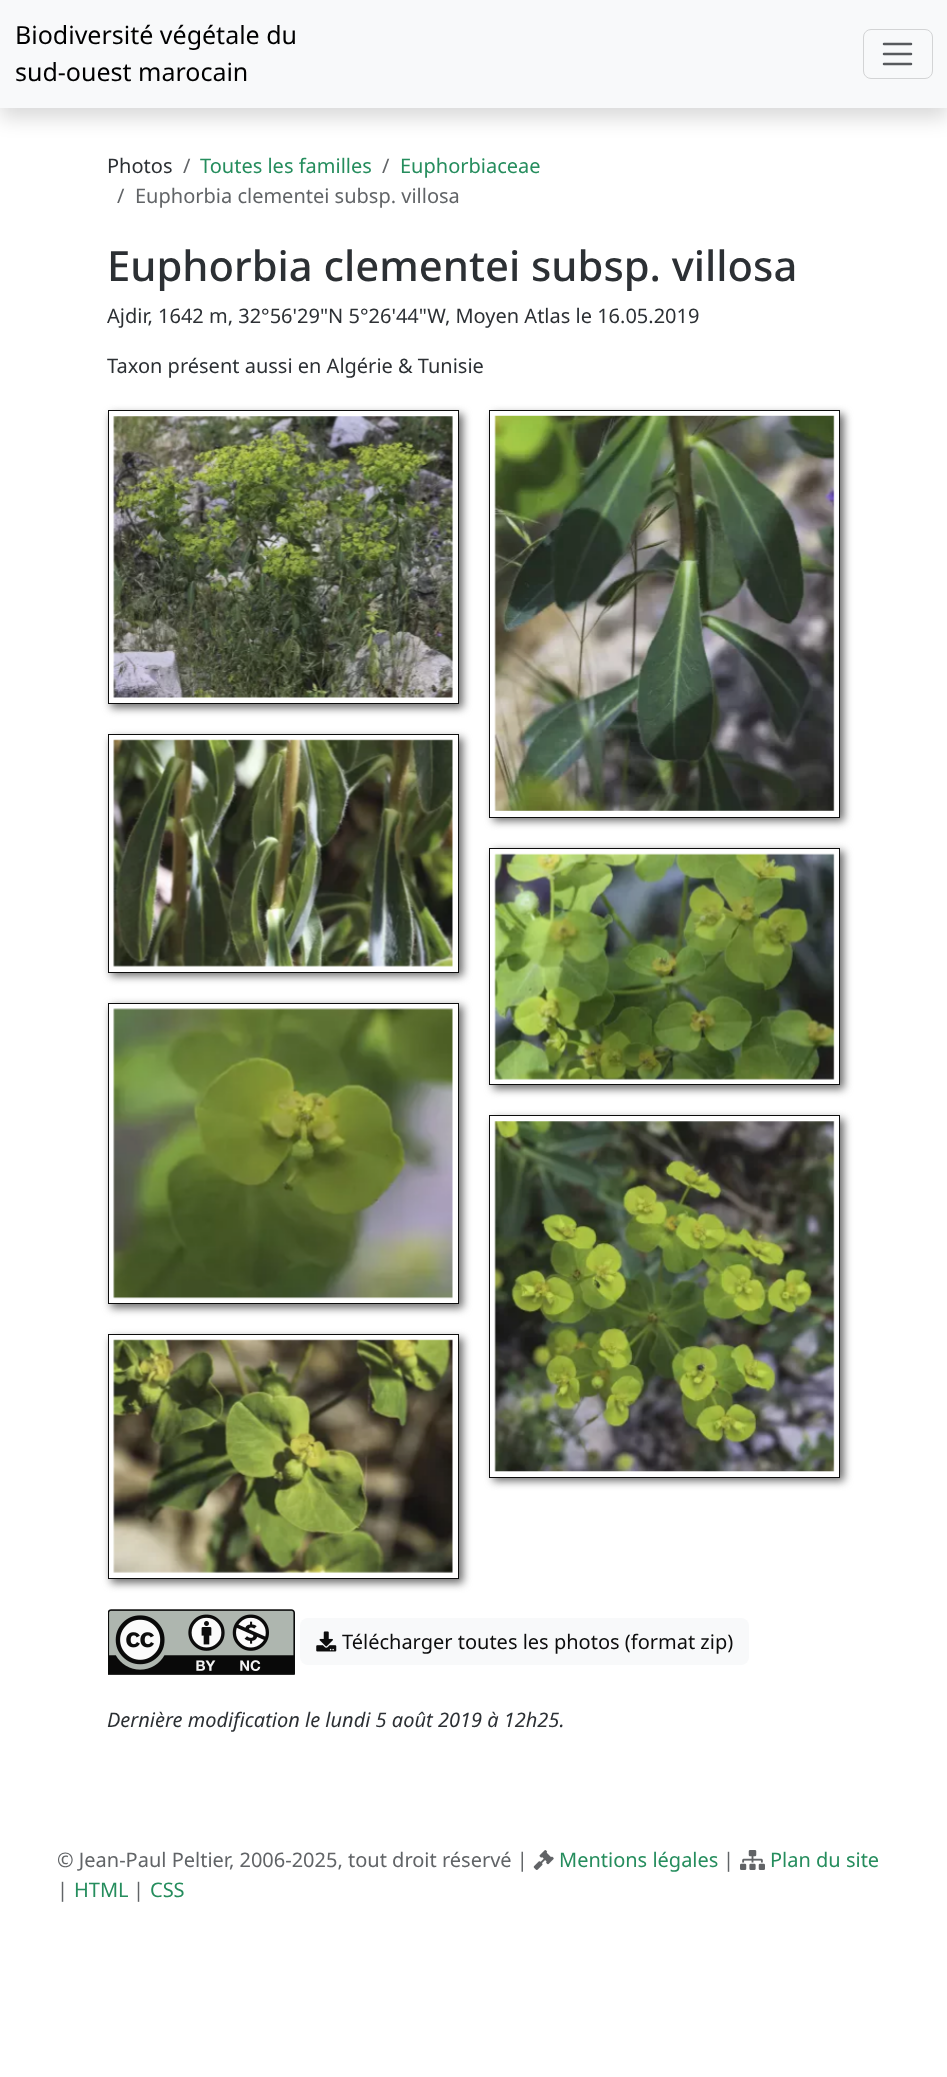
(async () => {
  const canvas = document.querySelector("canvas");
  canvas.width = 947;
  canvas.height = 2077;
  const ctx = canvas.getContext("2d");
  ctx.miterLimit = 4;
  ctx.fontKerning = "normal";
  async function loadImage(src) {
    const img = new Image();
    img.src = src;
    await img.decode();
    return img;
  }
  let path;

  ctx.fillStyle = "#ffffff";
  ctx.fillRect(0, 0, 947, 2077);
  ctx.fillStyle = "rgba(0, 0, 0, 0.15)";
  ctx.filter = "blur(10px)";
  ctx.beginPath();
  ctx.rect(0, 10, 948, 108);
  ctx.fill();
  ctx.filter = "none";
  ctx.fillStyle = "#f8f9fa";
  ctx.fillRect(0, 0, 947, 108);
  ctx.beginPath();
  ctx.roundRect(863.5, 29.5, 69, 49, 7.5);
  ctx.strokeStyle = "#d3d4d5";
  ctx.stroke();
  path = new Path2D("M884 44H911M884 54H911M884 64H911");
  ctx.strokeStyle = "#575a5d";
  ctx.lineWidth = 2.5;
  ctx.lineCap = "round";
  ctx.stroke(path);
  ctx.save();
  path = new Path2D("M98 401H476V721H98ZM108 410H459V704H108Z");
  ctx.clip(path, "evenodd");
  ctx.fillStyle = "#6d6d6d";
  ctx.filter = "blur(4px)";
  ctx.beginPath();
  ctx.rect(111, 414, 352, 294);
  ctx.fill();
  ctx.filter = "none";
  ctx.restore();
  ctx.strokeStyle = "#0d0d0d";
  ctx.lineWidth = 1;
  ctx.strokeRect(108.5, 410.5, 350, 293);
  ctx.drawImage(await loadImage("img/1.png"), 113, 416, 340, 282);
  ctx.save();
  path = new Path2D("M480 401H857V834H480ZM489 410H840V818H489Z");
  ctx.clip(path, "evenodd");
  ctx.fillStyle = "#6d6d6d";
  ctx.filter = "blur(4px)";
  ctx.beginPath();
  ctx.rect(493, 414, 351, 407);
  ctx.fill();
  ctx.filter = "none";
  ctx.restore();
  ctx.strokeRect(489.5, 410.5, 350, 407);
  ctx.drawImage(await loadImage("img/2.png"), 494, 415, 341, 396);
  ctx.save();
  path = new Path2D("M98 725H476V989H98ZM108 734H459V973H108Z");
  ctx.clip(path, "evenodd");
  ctx.fillStyle = "#6d6d6d";
  ctx.filter = "blur(4px)";
  ctx.beginPath();
  ctx.rect(111, 738, 352, 238);
  ctx.fill();
  ctx.filter = "none";
  ctx.restore();
  ctx.strokeRect(108.5, 734.5, 350, 238);
  ctx.drawImage(await loadImage("img/3.png"), 113, 739, 340, 228);
  ctx.save();
  path = new Path2D("M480 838H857V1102H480ZM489 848H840V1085H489Z");
  ctx.clip(path, "evenodd");
  ctx.fillStyle = "#6d6d6d";
  ctx.filter = "blur(4px)";
  ctx.beginPath();
  ctx.rect(493, 851, 351, 238);
  ctx.fill();
  ctx.filter = "none";
  ctx.restore();
  ctx.strokeRect(489.5, 848.5, 350, 236);
  ctx.drawImage(await loadImage("img/4.png"), 494, 853, 341, 227);
  ctx.save();
  path = new Path2D("M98 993H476V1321H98ZM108 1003H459V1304H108Z");
  ctx.clip(path, "evenodd");
  ctx.fillStyle = "#6d6d6d";
  ctx.filter = "blur(4px)";
  ctx.beginPath();
  ctx.rect(111, 1006, 352, 302);
  ctx.fill();
  ctx.filter = "none";
  ctx.restore();
  ctx.strokeRect(108.5, 1003.5, 350, 300);
  ctx.drawImage(await loadImage("img/5.png"), 113, 1008, 340, 291);
  ctx.save();
  path = new Path2D("M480 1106H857V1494H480ZM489 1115H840V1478H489Z");
  ctx.clip(path, "evenodd");
  ctx.fillStyle = "#6d6d6d";
  ctx.filter = "blur(4px)";
  ctx.beginPath();
  ctx.rect(493, 1119, 351, 362);
  ctx.fill();
  ctx.filter = "none";
  ctx.restore();
  ctx.strokeRect(489.5, 1115.5, 350, 362);
  ctx.drawImage(await loadImage("img/6.png"), 494, 1121, 341, 351);
  ctx.save();
  path = new Path2D("M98 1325H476V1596H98ZM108 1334H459V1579H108Z");
  ctx.clip(path, "evenodd");
  ctx.fillStyle = "#6d6d6d";
  ctx.filter = "blur(4px)";
  ctx.beginPath();
  ctx.rect(111, 1338, 352, 245);
  ctx.fill();
  ctx.filter = "none";
  ctx.restore();
  ctx.strokeRect(108.5, 1334.5, 350, 244);
  ctx.drawImage(await loadImage("img/7.png"), 113, 1339, 340, 234);
  ctx.drawImage(await loadImage("img/8.png"), 108, 1609, 187, 66);
  ctx.beginPath();
  ctx.roundRect(300, 1618, 449, 47, 8);
  ctx.fill();
  ctx.drawImage(await loadImage("img/9.png"), 316, 1631, 21, 21);
  ctx.drawImage(await loadImage("img/10.png"), 533, 1850, 21, 20);
  ctx.drawImage(await loadImage("img/11.png"), 740, 1850, 25, 20);
  ctx.font = "25px Noto Sans";
  ctx.fillStyle = "#000000";
  ctx.fillText("Biodiversité végétale du", 15, 44);
  ctx.fillText("sud-ouest marocain", 15, 81);
  ctx.font = "20px Noto Sans";
  ctx.fillStyle = "#2c3034";
  ctx.fillText("Photos", 107, 173);
  ctx.fillStyle = "#616467";
  ctx.fillText("/", 183, 173);
  ctx.fillStyle = "#258d5d";
  ctx.fillText("Toutes les familles", 200, 173);
  ctx.fillStyle = "#616467";
  ctx.fillText("/", 382, 173);
  ctx.fillStyle = "#258d5d";
  ctx.fillText("Euphorbiaceae", 400, 173);
  ctx.fillStyle = "#616467";
  ctx.fillText("/", 117, 203);
  ctx.fillText("Euphorbia clementei subsp. villosa", 135, 203);
  ctx.font = "500 41.75px Noto Sans";
  ctx.fillStyle = "#2c3034";
  ctx.fillText("Euphorbia clementei subsp. villosa", 107, 281);
  ctx.font = "20px Noto Sans";
  ctx.fillText("Ajdir, 1642 m, 32°56'29\"N 5°26'44\"W, Moyen Atlas le 16.05.2019", 107, 323);
  ctx.fillText("Taxon présent aussi en Algérie & Tunisie", 107, 373);
  ctx.fillStyle = "#0d0d0d";
  ctx.fillText("Télécharger toutes les photos (format zip)", 342, 1649);
  ctx.font = "italic 20px Noto Sans";
  ctx.fillStyle = "#2c3034";
  ctx.fillText("Dernière modification le lundi 5 août 2019 à 12h25.", 107, 1727);
  ctx.font = "20px Noto Sans";
  ctx.fillStyle = "#616467";
  ctx.fillText("© Jean-Paul Peltier, 2006-2025, tout droit réservé |", 57, 1867);
  ctx.fillStyle = "#258d5d";
  ctx.fillText("Mentions légales", 559, 1867);
  ctx.fillStyle = "#616467";
  ctx.fillText("|", 723, 1867);
  ctx.fillStyle = "#258d5d";
  ctx.fillText("Plan du site", 770, 1867);
  ctx.fillStyle = "#616467";
  ctx.fillText("|", 57, 1897);
  ctx.fillStyle = "#258d5d";
  ctx.fillText("HTML", 74, 1897);
  ctx.fillStyle = "#616467";
  ctx.fillText("|", 133, 1897);
  ctx.fillStyle = "#258d5d";
  ctx.fillText("CSS", 150, 1897);
})();
